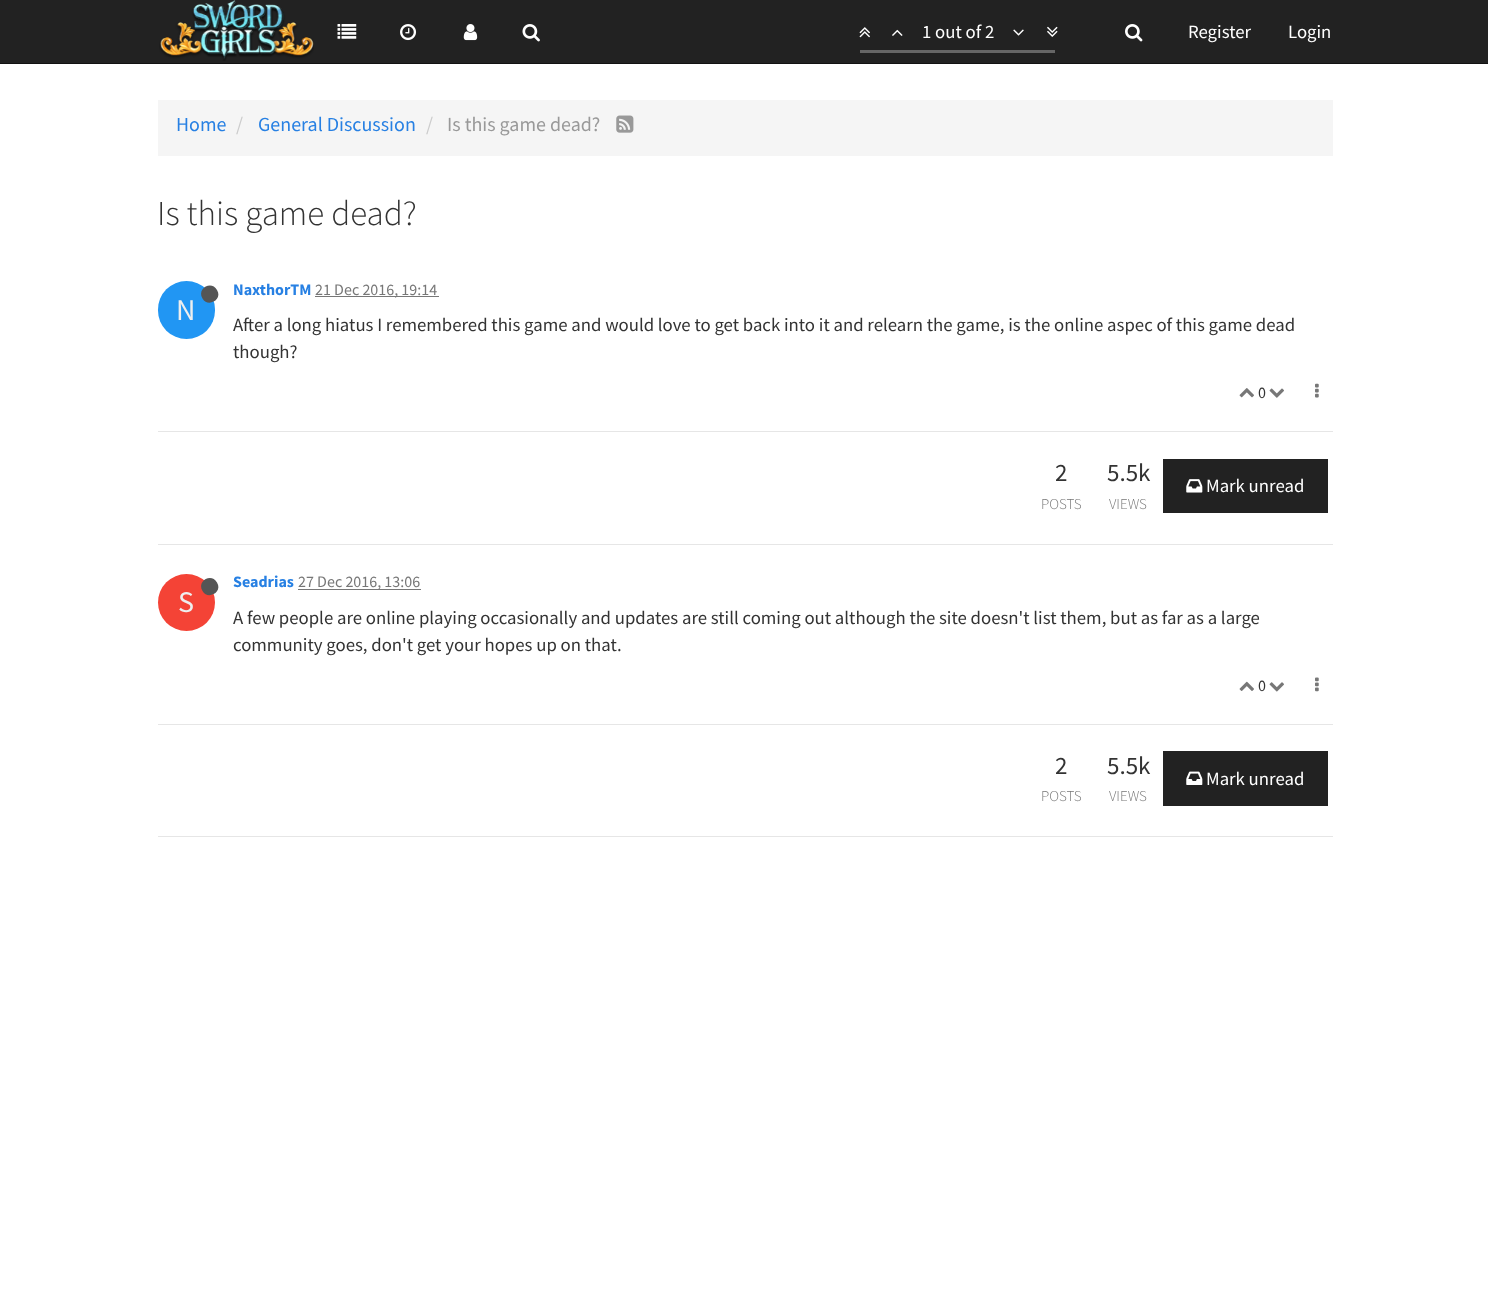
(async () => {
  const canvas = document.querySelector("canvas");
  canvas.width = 1488;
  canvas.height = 1309;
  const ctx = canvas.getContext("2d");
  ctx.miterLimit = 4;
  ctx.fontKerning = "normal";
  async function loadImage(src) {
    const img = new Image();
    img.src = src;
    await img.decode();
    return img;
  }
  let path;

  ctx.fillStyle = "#ffffff";
  ctx.fillRect(0, 0, 1488, 1309);
  ctx.fillStyle = "#222222";
  ctx.fillRect(0, 0, 1488, 63);
  ctx.fillStyle = "#121212";
  ctx.fillRect(0, 63, 1488, 1);
  ctx.drawImage(await loadImage("img/1.png"), 159, 0, 155, 61);
  ctx.drawImage(await loadImage("img/2.png"), 337, 24, 20, 15);
  ctx.drawImage(await loadImage("img/3.png"), 400, 24, 17, 17);
  ctx.drawImage(await loadImage("img/4.png"), 463, 24, 15, 17);
  ctx.drawImage(await loadImage("img/5.png"), 522, 24, 18, 18);
  ctx.drawImage(await loadImage("img/6.png"), 859, 27, 11, 11);
  ctx.drawImage(await loadImage("img/7.png"), 892, 29, 11, 7);
  ctx.drawImage(await loadImage("img/8.png"), 1013, 29, 11, 7);
  ctx.drawImage(await loadImage("img/9.png"), 1047, 26, 11, 11);
  ctx.fillStyle = "#666666";
  ctx.fillRect(860, 50, 195, 3);
  ctx.drawImage(await loadImage("img/10.png"), 1125, 24, 18, 18);
  ctx.fillStyle = "#f5f5f5";
  ctx.fillRect(158, 100, 1175, 56);
  ctx.drawImage(await loadImage("img/11.png"), 616, 115, 18, 18);
  ctx.fillStyle = "#777777";
  ctx.fillRect(315, 296, 124, 1);
  ctx.fillStyle = "#2196f3";
  ctx.beginPath();
  ctx.roundRect(158, 281, 57, 58, 28.5);
  ctx.fill();
  ctx.fillStyle = "#555555";
  path = new Path2D("M217 290C223 299.5 208 308 202.5 298.5C196.5 288.5 211.5 280 217 290Z");
  ctx.fill(path);
  ctx.drawImage(await loadImage("img/12.png"), 1239, 388, 15, 10);
  ctx.drawImage(await loadImage("img/13.png"), 1269, 388, 15, 10);
  ctx.drawImage(await loadImage("img/14.png"), 1315, 383, 4, 15);
  ctx.fillStyle = "#e6e6e6";
  ctx.fillRect(158, 431, 1175, 1);
  ctx.fillStyle = "#222222";
  ctx.fillRect(1163, 459, 165, 54);
  ctx.drawImage(await loadImage("img/15.png"), 1186, 479, 17, 14);
  ctx.fillStyle = "#e6e6e6";
  ctx.fillRect(158, 544, 1175, 1);
  ctx.fillStyle = "#777777";
  ctx.fillRect(298, 589, 123, 1);
  ctx.fillStyle = "#f44336";
  ctx.beginPath();
  ctx.arc(186.5, 602.5, 28.5, 0, Math.PI * 2);
  ctx.fill();
  ctx.fillStyle = "#555555";
  path = new Path2D("M217 582.5C223 592 208 600.5 202.5 591C196.5 581 211.5 572.5 217 582.5Z");
  ctx.fill(path);
  ctx.drawImage(await loadImage("img/16.png"), 1239, 681, 15, 10);
  ctx.drawImage(await loadImage("img/17.png"), 1269, 682, 15, 10);
  ctx.drawImage(await loadImage("img/18.png"), 1315, 677, 4, 15);
  ctx.fillStyle = "#e6e6e6";
  ctx.fillRect(158, 724, 1175, 1);
  ctx.fillStyle = "#222222";
  ctx.fillRect(1163, 751, 165, 55);
  ctx.drawImage(await loadImage("img/19.png"), 1186, 771, 17, 14);
  ctx.fillStyle = "#e6e6e6";
  ctx.fillRect(158, 836, 1175, 1);
  ctx.font = "18.75px Source Sans Pro";
  ctx.fillStyle = "#ffffff";
  for (const [text, x, y] of [
    ["1 out of 2", 922, 38],
    ["Register", 1188, 38],
    ["Login", 1288, 38],
  ]) {
    ctx.fillText(text, x, y);
  }
  ctx.font = "20px Source Sans Pro";
  ctx.fillStyle = "#2780e3";
  ctx.fillText("Home", 176, 131);
  ctx.fillStyle = "#cccccc";
  ctx.fillText("/", 236, 131);
  ctx.fillStyle = "#2780e3";
  ctx.fillText("General Discussion", 258, 131);
  ctx.fillStyle = "#cccccc";
  ctx.fillText("/", 426, 131);
  ctx.fillStyle = "#999999";
  ctx.fillText("Is this game dead?", 447, 131);
  ctx.font = "300 35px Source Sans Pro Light";
  ctx.fillStyle = "#333333";
  ctx.fillText("Is this game dead?", 157, 225);
  ctx.font = "bold 16px Source Sans Pro";
  ctx.fillStyle = "#2780e3";
  ctx.fillText("NaxthorTM", 233, 295);
  ctx.font = "16px Source Sans Pro";
  ctx.fillStyle = "#777777";
  ctx.fillText("21 Dec 2016, 19:14", 315, 295);
  ctx.font = "30px Source Sans Pro";
  ctx.fillStyle = "#eeeeee";
  ctx.fillText("N", 176, 320);
  ctx.font = "18.75px Source Sans Pro";
  ctx.fillStyle = "#333333";
  ctx.fillText("After a long hiatus I remembered this game and would love to get back into it and relearn the game, is the online aspec of this game dead", 233, 331);
  ctx.fillText("though?", 233, 358);
  ctx.font = "16px Source Sans Pro";
  ctx.fillText("0", 1258, 398);
  ctx.font = "25px Source Sans Pro";
  ctx.fillText("2", 1055, 481);
  ctx.font = "300 15px Source Sans Pro Light";
  ctx.fillStyle = "#777777";
  ctx.fillText("POSTS", 1041, 509);
  ctx.font = "25px Source Sans Pro";
  ctx.fillStyle = "#333333";
  ctx.fillText("5.5k", 1107, 481);
  ctx.font = "300 15px Source Sans Pro Light";
  ctx.fillStyle = "#777777";
  ctx.fillText("VIEWS", 1109, 509);
  ctx.font = "18.75px Source Sans Pro";
  ctx.fillStyle = "#ffffff";
  ctx.fillText("Mark unread", 1206, 492);
  ctx.font = "bold 16px Source Sans Pro";
  ctx.fillStyle = "#2780e3";
  ctx.fillText("Seadrias", 233, 587);
  ctx.font = "16px Source Sans Pro";
  ctx.fillStyle = "#777777";
  ctx.fillText("27 Dec 2016, 13:06", 298, 587);
  ctx.font = "30px Source Sans Pro";
  ctx.fillStyle = "#eeeeee";
  ctx.fillText("S", 178, 612);
  ctx.font = "18.75px Source Sans Pro";
  ctx.fillStyle = "#333333";
  ctx.fillText("A few people are online playing occasionally and updates are still coming out although the site doesn't list them, but as far as a large", 233, 624);
  ctx.fillText("community goes, don't get your hopes up on that.", 233, 651);
  ctx.font = "16px Source Sans Pro";
  ctx.fillText("0", 1258, 691);
  ctx.font = "25px Source Sans Pro";
  ctx.fillText("2", 1055, 774);
  ctx.font = "300 15px Source Sans Pro Light";
  ctx.fillStyle = "#777777";
  ctx.fillText("POSTS", 1041, 801);
  ctx.font = "25px Source Sans Pro";
  ctx.fillStyle = "#333333";
  ctx.fillText("5.5k", 1107, 774);
  ctx.font = "300 15px Source Sans Pro Light";
  ctx.fillStyle = "#777777";
  ctx.fillText("VIEWS", 1109, 801);
  ctx.font = "18.75px Source Sans Pro";
  ctx.fillStyle = "#ffffff";
  ctx.fillText("Mark unread", 1206, 785);
})();
